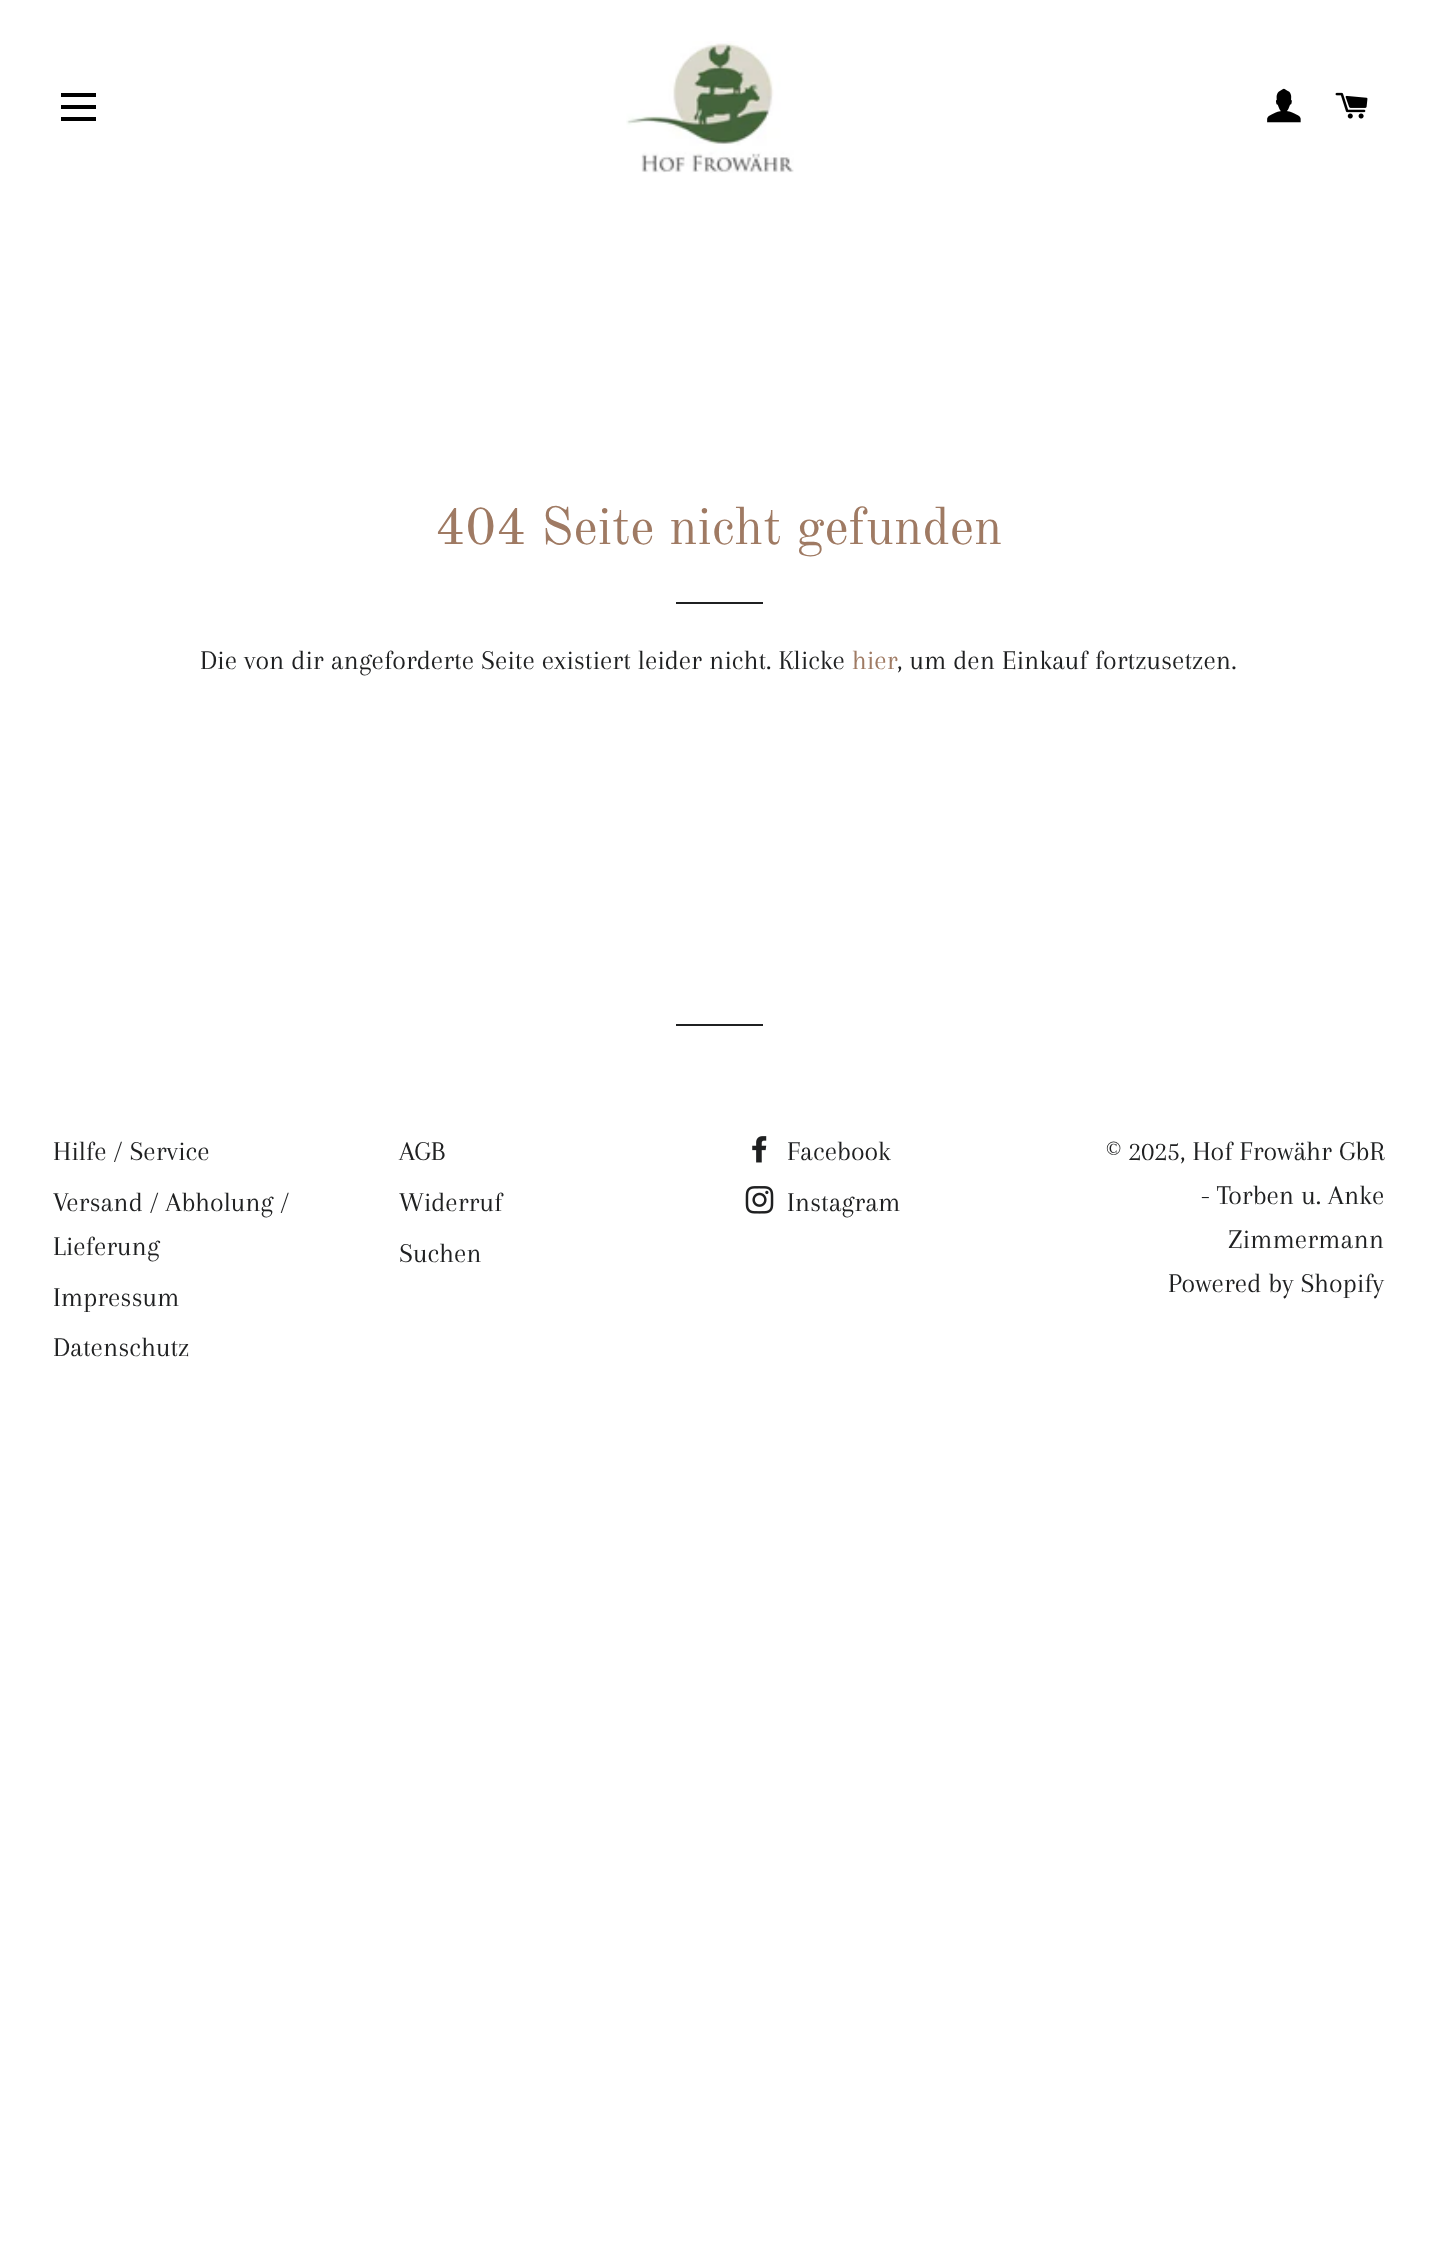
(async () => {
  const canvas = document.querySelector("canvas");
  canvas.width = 1436;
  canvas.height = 2241;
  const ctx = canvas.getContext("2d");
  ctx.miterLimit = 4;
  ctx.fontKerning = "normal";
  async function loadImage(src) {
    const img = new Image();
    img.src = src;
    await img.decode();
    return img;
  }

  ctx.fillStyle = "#ffffff";
  ctx.fillRect(0, 0, 1436, 2241);
  for (const [x, y, w, h, color] of [
    [61, 93, 35, 4, "#000000"],
    [61, 105, 35, 4, "#000000"],
    [61, 117, 35, 4, "#000000"],
  ]) {
    ctx.fillStyle = color;
    ctx.fillRect(x, y, w, h);
  }
  ctx.drawImage(await loadImage("img/1.png"), 626, 41, 168, 132);
  ctx.drawImage(await loadImage("img/2.png"), 1267, 88, 34, 35);
  ctx.drawImage(await loadImage("img/3.png"), 1335, 92, 33, 27);
  ctx.fillStyle = "#1f2021";
  ctx.fillRect(676, 602, 87, 2);
  ctx.fillRect(676, 1024, 87, 2);
  ctx.drawImage(await loadImage("img/4.png"), 752, 1136, 15, 27);
  ctx.drawImage(await loadImage("img/5.png"), 745, 1186, 29, 28);
  ctx.font = "52.5px Old Standard TT";
  ctx.fillStyle = "#9f7a63";
  ctx.fillText("404 Seite nicht gefunden", 435, 544);
  ctx.font = "28px Arapey";
  ctx.fillStyle = "#1f2021";
  ctx.fillText("Die von dir angeforderte Seite existiert leider nicht. Klicke", 200, 669);
  ctx.fillStyle = "#9f7a63";
  ctx.fillText("hier", 852, 669);
  ctx.fillStyle = "#1f2021";
  for (const [text, x, y] of [
    [", um den Einkauf fortzusetzen.", 897, 669],
    ["Hilfe / Service", 53, 1160],
    ["Versand / Abholung /", 53, 1211],
    ["Lieferung", 53, 1255],
    ["Impressum", 53, 1306],
    ["Datenschutz", 53, 1356],
    ["AGB", 399, 1160],
    ["Widerruf", 399, 1211],
    ["Suchen", 399, 1262],
    ["Facebook", 787, 1160],
    ["Instagram", 787, 1211],
    ["© 2025, Hof Frowähr GbR", 1106, 1160],
    ["- Torben u. Anke", 1201, 1204],
    ["Zimmermann", 1228, 1248],
    ["Powered by Shopify", 1168, 1292],
  ]) {
    ctx.fillText(text, x, y);
  }
})();
